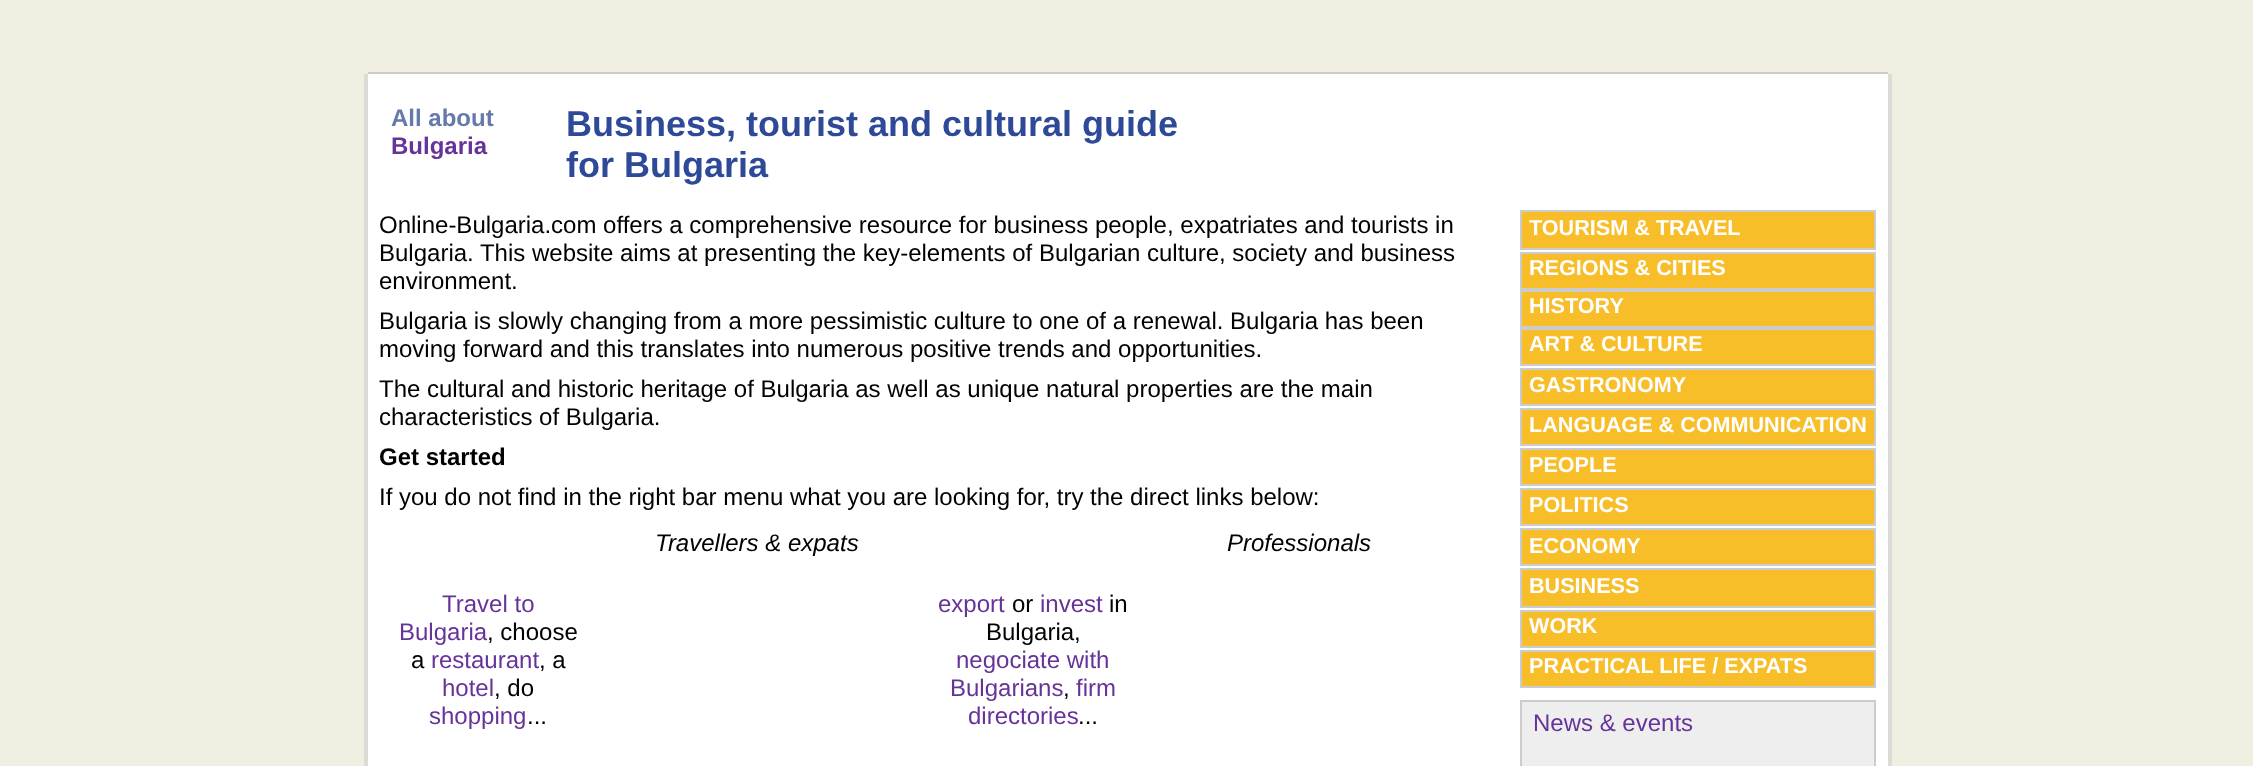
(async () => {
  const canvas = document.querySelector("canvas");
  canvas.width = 2253;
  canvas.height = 766;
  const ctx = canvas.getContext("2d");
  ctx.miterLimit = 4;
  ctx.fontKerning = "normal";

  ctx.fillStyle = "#f1efe2";
  ctx.fillRect(0, 0, 2253, 766);
  for (const [x, y, w, h, color] of [
    [368, 72, 1520, 2, "#cccccc"],
    [368, 74, 1520, 692, "#ffffff"],
    [1888, 74, 4, 692, "#dcdbd6"],
    [364, 74, 4, 692, "#dcdbd6"],
  ]) {
    ctx.fillStyle = color;
    ctx.fillRect(x, y, w, h);
  }
  ctx.fillStyle = "#f8be2a";
  ctx.beginPath();
  ctx.rect(1521, 211, 354, 38);
  ctx.fill();
  ctx.strokeStyle = "#cccccc";
  ctx.lineWidth = 2;
  ctx.stroke();
  ctx.beginPath();
  ctx.rect(1521, 253, 354, 36);
  ctx.fill();
  ctx.stroke();
  ctx.beginPath();
  ctx.rect(1521, 291, 354, 36);
  ctx.fill();
  ctx.stroke();
  ctx.beginPath();
  ctx.rect(1521, 329, 354, 36);
  ctx.fill();
  ctx.stroke();
  ctx.beginPath();
  ctx.rect(1521, 369, 354, 36);
  ctx.fill();
  ctx.stroke();
  ctx.beginPath();
  ctx.rect(1521, 409, 354, 36);
  ctx.fill();
  ctx.stroke();
  ctx.beginPath();
  ctx.rect(1521, 449, 354, 36);
  ctx.fill();
  ctx.stroke();
  ctx.beginPath();
  ctx.rect(1521, 489, 354, 36);
  ctx.fill();
  ctx.stroke();
  ctx.beginPath();
  ctx.rect(1521, 529, 354, 36);
  ctx.fill();
  ctx.stroke();
  ctx.beginPath();
  ctx.rect(1521, 569, 354, 38);
  ctx.fill();
  ctx.stroke();
  ctx.beginPath();
  ctx.rect(1521, 611, 354, 36);
  ctx.fill();
  ctx.stroke();
  ctx.beginPath();
  ctx.rect(1521, 651, 354, 36);
  ctx.fill();
  ctx.stroke();
  ctx.fillStyle = "#eeeeee";
  ctx.beginPath();
  ctx.rect(1521, 701, 354, 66);
  ctx.fill();
  ctx.stroke();
  ctx.font = "bold 24px Liberation Sans";
  ctx.fillStyle = "#6579aa";
  ctx.fillText("All about", 391, 126);
  ctx.fillStyle = "#663399";
  ctx.fillText("Bulgaria", 391, 154);
  ctx.font = "bold 36px Liberation Sans";
  ctx.fillStyle = "#2d4998";
  ctx.fillText("Business, tourist and cultural guide", 566, 136);
  ctx.fillText("for Bulgaria", 566, 177);
  ctx.font = "24px Liberation Sans";
  ctx.fillStyle = "#000000";
  for (const [text, x, y] of [
    ["Online-Bulgaria.com offers a comprehensive resource for business people, expatriates and tourists in", 379, 233],
    ["Bulgaria. This website aims at presenting the key-elements of Bulgarian culture, society and business", 379, 261],
    ["environment.", 379, 289],
    ["Bulgaria is slowly changing from a more pessimistic culture to one of a renewal. Bulgaria has been", 379, 329],
    ["moving forward and this translates into numerous positive trends and opportunities.", 379, 357],
    ["The cultural and historic heritage of Bulgaria as well as unique natural properties are the main", 379, 397],
    ["characteristics of Bulgaria.", 379, 425],
  ]) {
    ctx.fillText(text, x, y);
  }
  ctx.font = "bold 24px Liberation Sans";
  ctx.fillText("Get started", 379, 465);
  ctx.font = "24px Liberation Sans";
  ctx.fillText("If you do not find in the right bar menu what you are looking for, try the direct links below:", 379, 505);
  ctx.font = "italic 24px Liberation Sans";
  ctx.fillText("Travellers & expats", 655, 551);
  ctx.fillText("Professionals", 1227, 551);
  ctx.font = "24px Liberation Sans";
  ctx.fillStyle = "#663399";
  ctx.fillText("Travel to", 442, 612);
  ctx.fillText("Bulgaria", 399, 640);
  ctx.fillStyle = "#000000";
  ctx.fillText(", choose", 487, 640);
  ctx.fillText("a", 411, 668);
  ctx.fillStyle = "#663399";
  ctx.fillText("restaurant", 431, 668);
  ctx.fillStyle = "#000000";
  ctx.fillText(", a", 539, 668);
  ctx.fillStyle = "#663399";
  ctx.fillText("hotel", 442, 696);
  ctx.fillStyle = "#000000";
  ctx.fillText(", do", 494, 696);
  ctx.fillStyle = "#663399";
  ctx.fillText("shopping", 429, 724);
  ctx.fillStyle = "#000000";
  ctx.fillText("...", 527, 724);
  ctx.fillStyle = "#663399";
  ctx.fillText("export", 938, 612);
  ctx.fillStyle = "#000000";
  ctx.fillText("or", 1012, 612);
  ctx.fillStyle = "#663399";
  ctx.fillText("invest", 1040, 612);
  ctx.fillStyle = "#000000";
  ctx.fillText("in", 1109, 612);
  ctx.fillText("Bulgaria,", 986, 640);
  ctx.fillStyle = "#663399";
  ctx.fillText("negociate with", 956, 668);
  ctx.fillText("Bulgarians", 950, 696);
  ctx.fillStyle = "#000000";
  ctx.fillText(",", 1063, 696);
  ctx.fillStyle = "#663399";
  ctx.fillText("firm", 1076, 696);
  ctx.fillText("directories", 968, 724);
  ctx.fillStyle = "#000000";
  ctx.fillText("...", 1078, 724);
  ctx.font = "bold 21.6px Liberation Sans";
  ctx.fillStyle = "#ffffff";
  for (const [text, x, y] of [
    ["TOURISM & TRAVEL", 1529, 235],
    ["REGIONS & CITIES", 1529, 275],
    ["HISTORY", 1529, 313],
    ["ART & CULTURE", 1529, 351],
    ["GASTRONOMY", 1529, 392],
    ["LANGUAGE & COMMUNICATION", 1529, 432],
    ["PEOPLE", 1529, 472],
    ["POLITICS", 1529, 512],
    ["ECONOMY", 1529, 553],
    ["BUSINESS", 1529, 593],
    ["WORK", 1529, 633],
    ["PRACTICAL LIFE / EXPATS", 1529, 673],
  ]) {
    ctx.fillText(text, x, y);
  }
  ctx.font = "24px Liberation Sans";
  ctx.fillStyle = "#663399";
  ctx.fillText("News & events", 1533, 731);
})();
